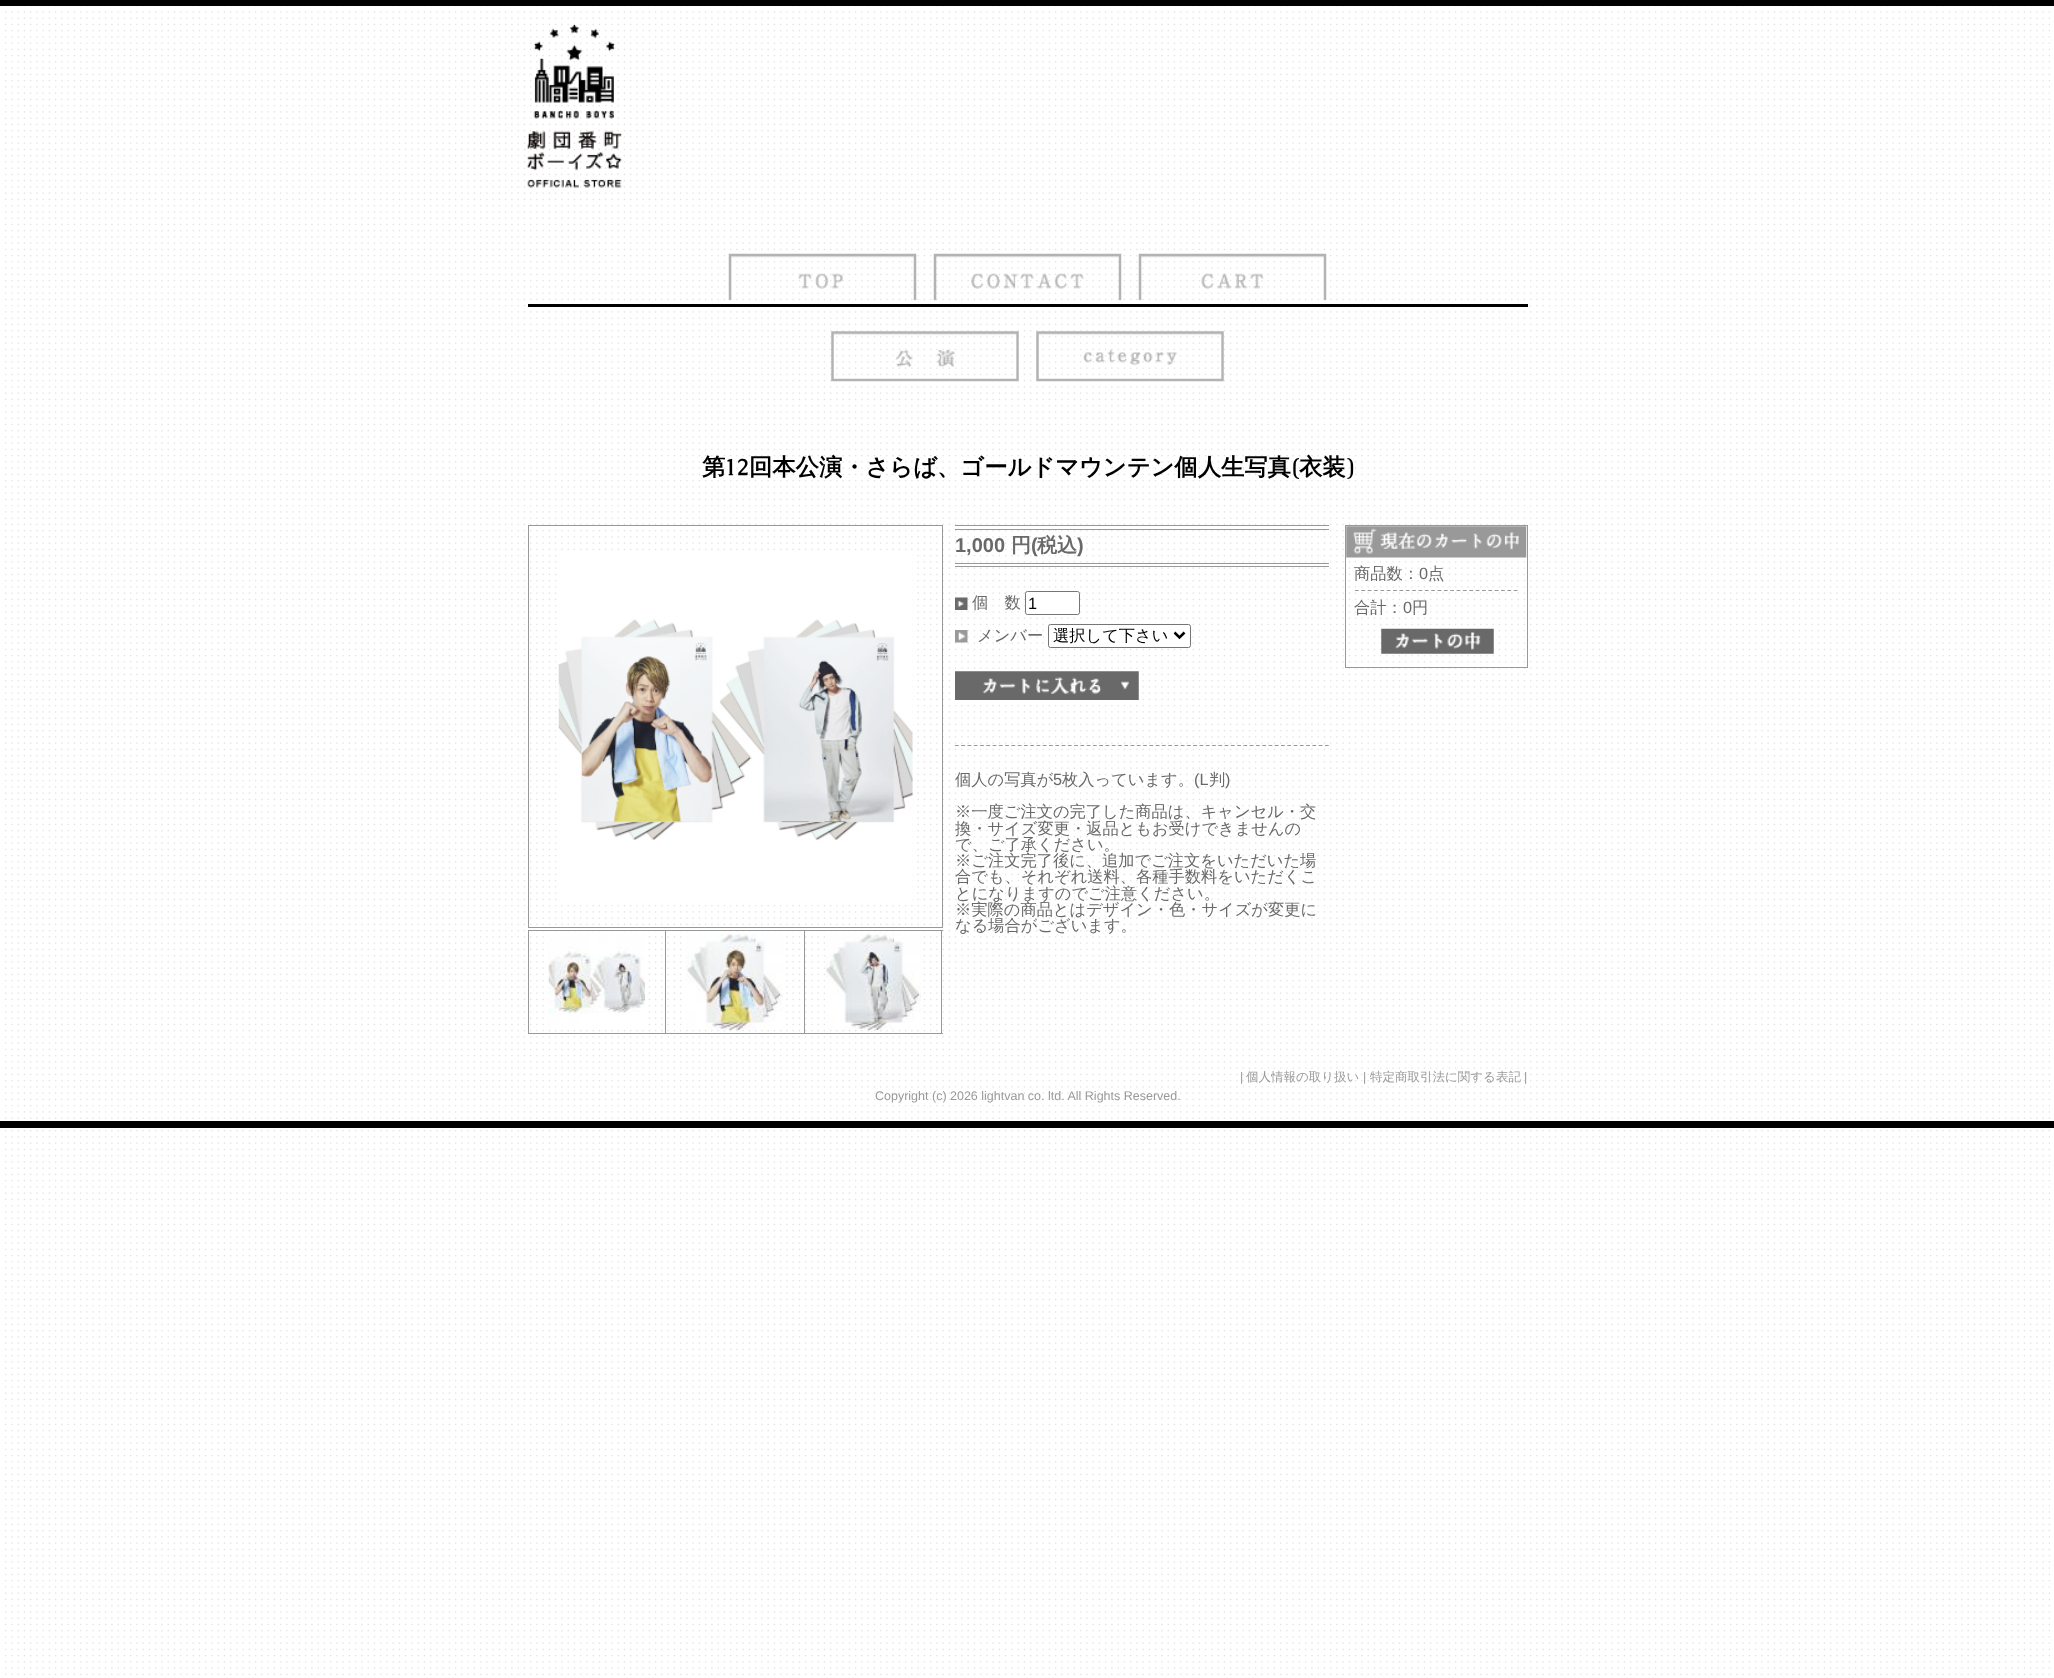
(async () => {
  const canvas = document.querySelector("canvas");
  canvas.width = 2054;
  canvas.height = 1678;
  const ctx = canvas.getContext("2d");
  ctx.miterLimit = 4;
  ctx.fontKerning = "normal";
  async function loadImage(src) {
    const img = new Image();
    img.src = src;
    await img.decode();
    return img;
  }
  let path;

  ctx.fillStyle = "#ffffff";
  ctx.fillRect(0, 0, 2054, 1678);
  ctx.drawImage(await loadImage("img/1.png"), 5, 6, 2045, 1669);
  ctx.fillStyle = "#000000";
  ctx.fillRect(0, 0, 2054, 6);
  ctx.drawImage(await loadImage("img/2.png"), 527, 25, 95, 163);
  ctx.fillRect(528, 304, 1000, 3);
  ctx.drawImage(await loadImage("img/3.png"), 728, 253, 189, 48);
  ctx.drawImage(await loadImage("img/4.png"), 933, 253, 189, 48);
  ctx.drawImage(await loadImage("img/5.png"), 1138, 253, 189, 48);
  ctx.drawImage(await loadImage("img/6.png"), 831, 331, 188, 51);
  ctx.drawImage(await loadImage("img/7.png"), 1036, 331, 188, 51);
  ctx.strokeStyle = "#999999";
  ctx.strokeRect(528.5, 525.5, 414, 402);
  ctx.drawImage(await loadImage("img/8.png"), 558, 555, 355, 345);
  for (const [x, y, w, h, color] of [
    [804, 930, 139, 1, "#999999"],
    [941, 930, 1, 104, "#999999"],
    [804, 1033, 139, 1, "#999999"],
    [804, 930, 1, 104, "#999999"],
    [665, 930, 140, 1, "#999999"],
    [665, 1033, 140, 1, "#999999"],
    [665, 930, 1, 104, "#999999"],
    [528, 930, 138, 1, "#999999"],
    [528, 1033, 138, 1, "#999999"],
    [528, 930, 1, 104, "#999999"],
  ]) {
    ctx.fillStyle = color;
    ctx.fillRect(x, y, w, h);
  }
  ctx.drawImage(await loadImage("img/9.png"), 548, 936, 97, 89);
  ctx.drawImage(await loadImage("img/10.png"), 686, 933, 97, 97);
  ctx.drawImage(await loadImage("img/11.png"), 825, 933, 97, 97);
  for (const [x, y, w, h, color] of [
    [955, 525, 374, 1, "#999999"],
    [955, 529, 374, 1, "#999999"],
    [955, 563, 374, 1, "#999999"],
    [955, 566, 374, 1, "#999999"],
  ]) {
    ctx.fillStyle = color;
    ctx.fillRect(x, y, w, h);
  }
  ctx.drawImage(await loadImage("img/12.png"), 955, 597, 13, 13);
  ctx.fillStyle = "#ffffff";
  ctx.beginPath();
  ctx.roundRect(1025.5, 591.5, 54, 23, 2);
  ctx.fill();
  ctx.strokeStyle = "#767676";
  ctx.stroke();
  ctx.drawImage(await loadImage("img/13.png"), 955, 630, 13, 13);
  ctx.beginPath();
  ctx.roundRect(1048.5, 624.5, 142, 23, 2);
  ctx.fill();
  ctx.stroke();
  path = new Path2D("M1174.5 632.5L1179.5 637.5L1184.5 632.5");
  ctx.strokeStyle = "#000000";
  ctx.lineWidth = 2.5;
  ctx.stroke(path);
  path = new Path2D("M955 745.5H1329");
  ctx.strokeStyle = "#999999";
  ctx.lineWidth = 1.2;
  ctx.setLineDash([3.75, 2.52]);
  ctx.stroke(path);
  ctx.drawImage(await loadImage("img/14.png"), 955, 671, 184, 29);
  ctx.lineWidth = 1;
  ctx.setLineDash([]);
  ctx.strokeRect(1345.5, 525.5, 182, 142);
  ctx.drawImage(await loadImage("img/15.png"), 1346, 526, 181, 32);
  path = new Path2D("M1355 590.5H1517.5");
  ctx.lineWidth = 1.2;
  ctx.setLineDash([3.75, 2.6]);
  ctx.stroke(path);
  ctx.drawImage(await loadImage("img/16.png"), 1381, 628, 113, 26);
  ctx.fillStyle = "#000000";
  ctx.fillRect(0, 1121, 2054, 7);
  ctx.font = "bold 23.3px WenQuanYi Zen Hei";
  ctx.fillText("第", 702, 475);
  ctx.font = "bold 23.3px Caudex";
  ctx.fillText("12", 725, 475);
  ctx.font = "bold 23.3px WenQuanYi Zen Hei";
  ctx.fillText("回本公演・さらば、ゴールドマウンテン個人生写真", 749, 475);
  ctx.font = "bold 23.3px Caudex";
  ctx.fillText("(", 1292, 475);
  ctx.font = "bold 23.3px WenQuanYi Zen Hei";
  ctx.fillText("衣装", 1299, 475);
  ctx.font = "bold 23.3px Caudex";
  ctx.fillText(")", 1346, 475);
  ctx.font = "bold 20px Liberation Sans";
  ctx.fillStyle = "#696969";
  ctx.fillText("1,000", 955, 552);
  ctx.font = "bold 20px WenQuanYi Zen Hei";
  ctx.fillText("円", 1011, 552);
  ctx.font = "bold 20px Liberation Sans";
  ctx.fillText("(", 1031, 552);
  ctx.font = "bold 20px WenQuanYi Zen Hei";
  ctx.fillText("税込", 1037, 552);
  ctx.font = "bold 20px Liberation Sans";
  ctx.fillText(")", 1077, 552);
  ctx.font = "500 16.25px WenQuanYi Zen Hei";
  ctx.fillText("個　数", 972, 608);
  ctx.font = "16.25px Liberation Sans";
  ctx.fillStyle = "#000000";
  ctx.fillText("1", 1028, 609);
  ctx.font = "500 16.25px WenQuanYi Zen Hei";
  ctx.fillStyle = "#696969";
  ctx.fillText("メンバー", 977, 641);
  ctx.fillStyle = "#000000";
  ctx.fillText("選択して下さい", 1053, 641);
  ctx.fillStyle = "#696969";
  ctx.fillText("個人の写真が", 955, 785);
  ctx.font = "16.25px Liberation Sans";
  ctx.fillText("5", 1053, 785);
  ctx.font = "500 16.25px WenQuanYi Zen Hei";
  ctx.fillText("枚入っています。", 1062, 785);
  ctx.font = "16.25px Liberation Sans";
  ctx.fillText("(L", 1194, 785);
  ctx.font = "500 16.25px WenQuanYi Zen Hei";
  ctx.fillText("判", 1209, 785);
  ctx.font = "16.25px Liberation Sans";
  ctx.fillText(")", 1225, 785);
  ctx.font = "500 16.25px WenQuanYi Zen Hei";
  for (const [text, x, y] of [
    ["※一度ご注文の完了した商品は、キャンセル・交", 955, 817],
    ["換・サイズ変更・返品ともお受けできませんの", 955, 834],
    ["で、ご了承ください。", 955, 850],
    ["※ご注文完了後に、追加でご注文をいただいた場", 955, 866],
    ["合でも、それぞれ送料、各種手数料をいただくこ", 955, 882],
    ["とになりますのでご注意ください。", 955, 899],
    ["※実際の商品とはデザイン・色・サイズが変更に", 955, 915],
    ["なる場合がございます。", 955, 931],
    ["商品数：", 1354, 579],
  ]) {
    ctx.fillText(text, x, y);
  }
  ctx.font = "16.25px Liberation Sans";
  ctx.fillText("0", 1419, 579);
  ctx.font = "500 16.25px WenQuanYi Zen Hei";
  ctx.fillText("点", 1428, 579);
  ctx.fillText("合計：", 1354, 613);
  ctx.font = "16.25px Liberation Sans";
  ctx.fillText("0", 1403, 613);
  ctx.font = "500 16.25px WenQuanYi Zen Hei";
  ctx.fillText("円", 1412, 613);
  ctx.font = "12.5px Liberation Sans";
  ctx.fillStyle = "#999999";
  ctx.fillText("|", 1240, 1081);
  ctx.font = "500 12.5px WenQuanYi Zen Hei";
  ctx.fillText("個人情報の取り扱い", 1246, 1081);
  ctx.font = "12.5px Liberation Sans";
  ctx.fillText("|", 1363, 1081);
  ctx.font = "500 12.5px WenQuanYi Zen Hei";
  ctx.fillText("特定商取引法に関する表記", 1370, 1081);
  ctx.font = "12.5px Liberation Sans";
  ctx.fillText("|", 1524, 1081);
  ctx.fillText("Copyright (c) 2026 lightvan co. ltd. All Rights Reserved.", 875, 1100);
})();
